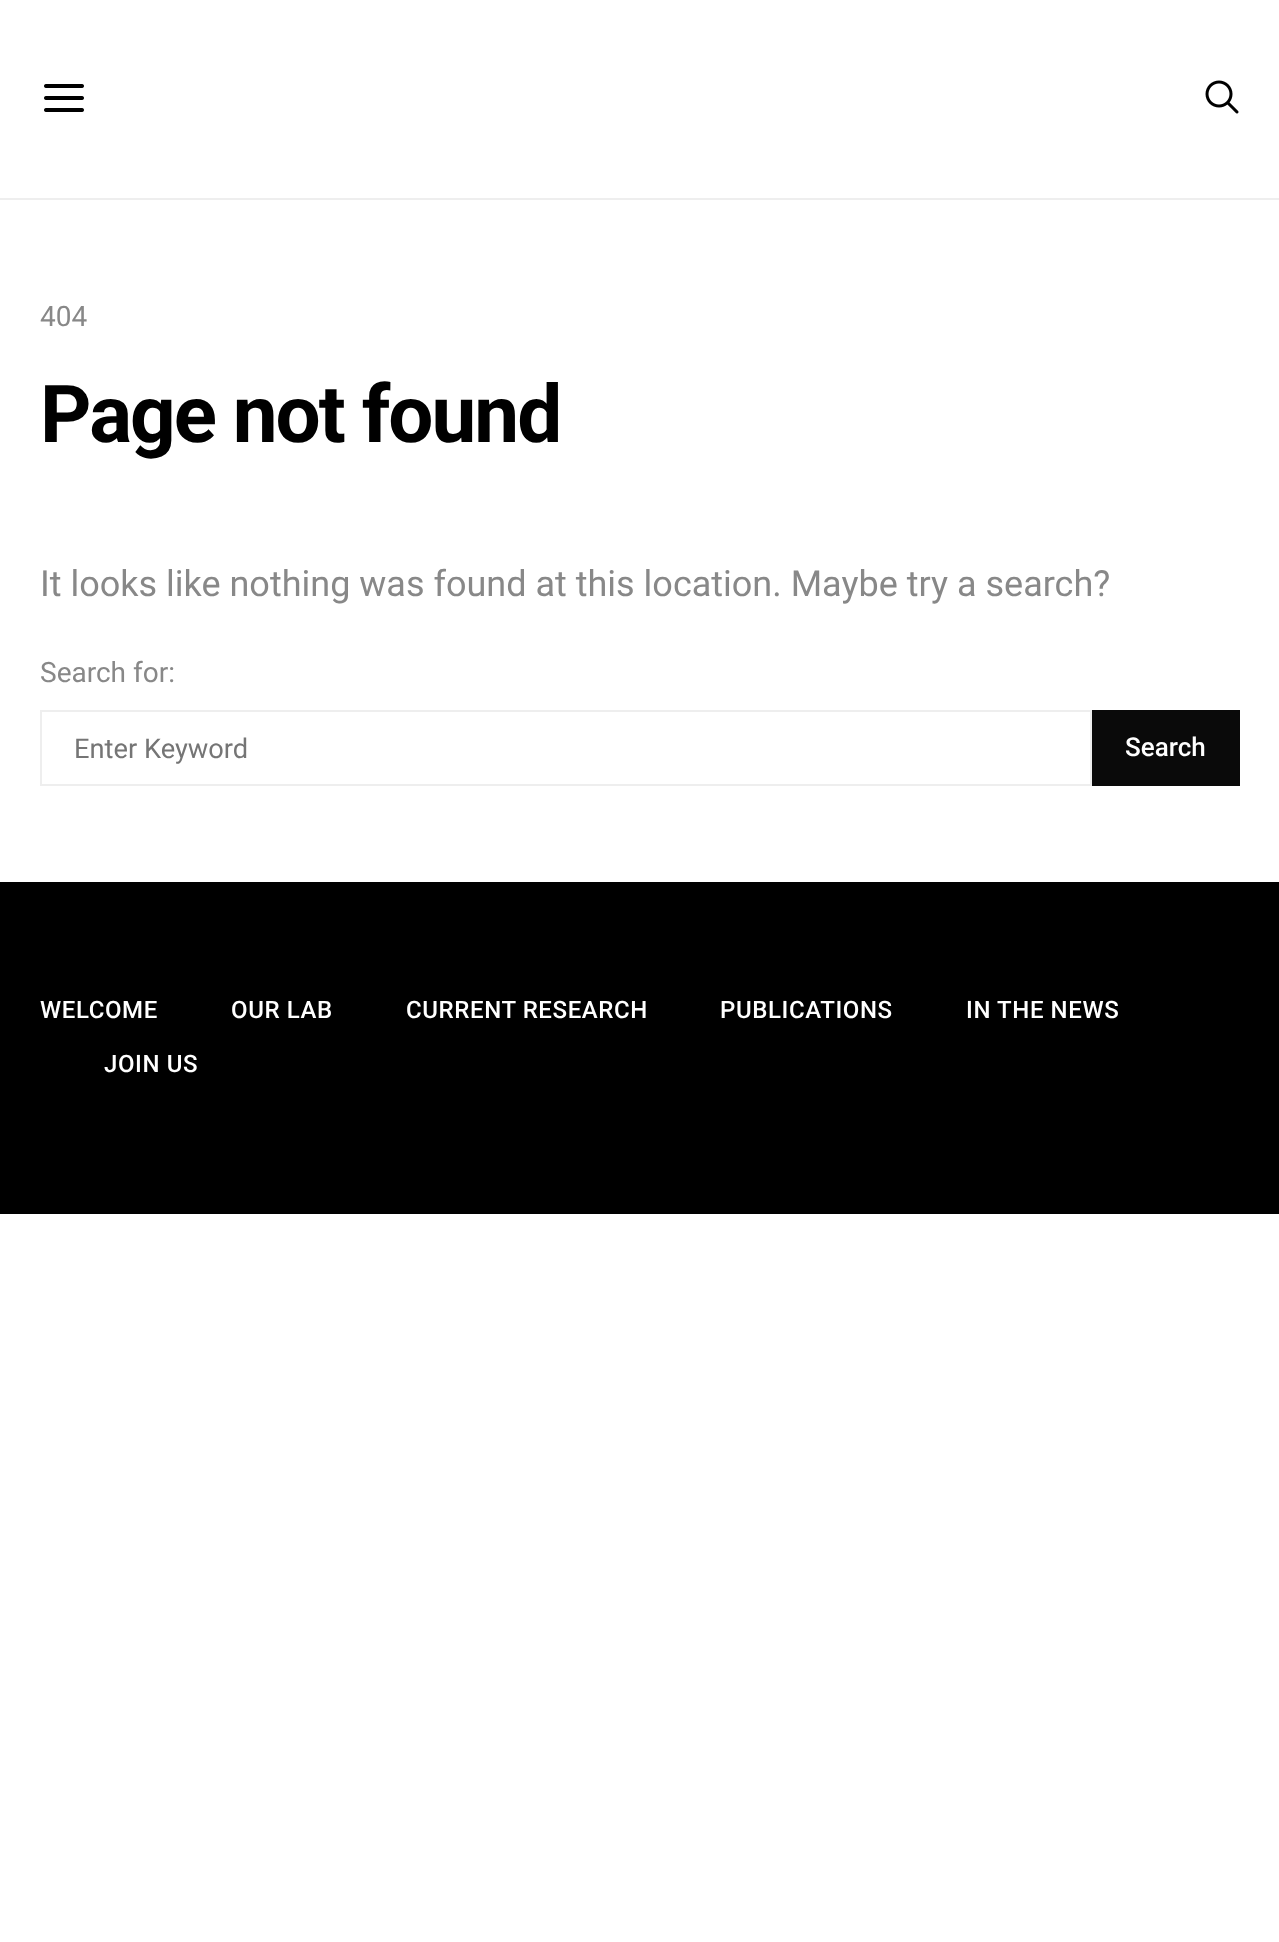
(async () => {
  const canvas = document.querySelector("canvas");
  canvas.width = 1279;
  canvas.height = 1942;
  const ctx = canvas.getContext("2d");
  ctx.miterLimit = 4;
  ctx.fontKerning = "normal";
  async function loadImage(src) {
    const img = new Image();
    img.src = src;
    await img.decode();
    return img;
  }

  ctx.fillStyle = "#ffffff";
  ctx.fillRect(0, 0, 1279, 1942);
  ctx.fillStyle = "#eeeeee";
  ctx.fillRect(0, 198, 1279, 2);
  ctx.drawImage(await loadImage("img/1.png"), 44, 84, 40, 28);
  ctx.drawImage(await loadImage("img/2.png"), 1205, 80, 34, 34);
  ctx.strokeStyle = "#eeeeee";
  ctx.lineWidth = 2;
  ctx.strokeRect(41, 711, 1050, 74);
  ctx.fillStyle = "#0a0a0a";
  ctx.fillRect(1092, 710, 148, 76);
  ctx.fillStyle = "#000000";
  ctx.fillRect(0, 882, 1279, 332);
  ctx.font = "28px Roboto";
  ctx.fillStyle = "#888888";
  ctx.fillText("404", 40, 326);
  ctx.letterSpacing = "-2px";
  ctx.font = "bold 80px Roboto";
  ctx.fillStyle = "#000000";
  ctx.fillText("Page not found", 40, 442);
  ctx.letterSpacing = "0px";
  ctx.font = "36px Roboto";
  ctx.fillStyle = "#888888";
  ctx.fillText("It looks like nothing was found at this location. Maybe try a search?", 40, 596);
  ctx.font = "28px Roboto";
  ctx.fillText("Search for:", 40, 682);
  ctx.font = "27.25px Roboto";
  ctx.fillStyle = "#757575";
  ctx.fillText("Enter Keyword", 74, 758);
  ctx.font = "500 26px Roboto";
  ctx.fillStyle = "#ffffff";
  ctx.fillText("Search", 1125, 756);
  ctx.letterSpacing = "0.6px";
  ctx.font = "500 24px Roboto";
  for (const [text, x, y] of [
    ["WELCOME", 40, 1018],
    ["OUR LAB", 231, 1018],
    ["CURRENT RESEARCH", 406, 1018],
    ["PUBLICATIONS", 720, 1018],
    ["IN THE NEWS", 966, 1018],
    ["JOIN US", 104, 1072],
  ]) {
    ctx.fillText(text, x, y);
  }
})();
